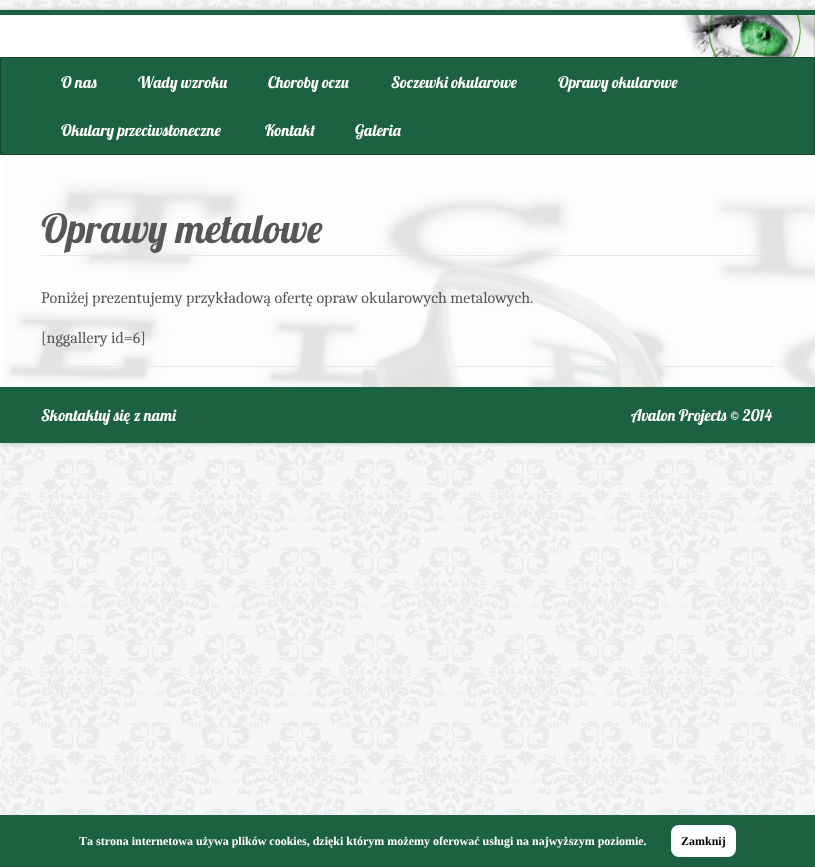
(async () => {
  const canvas = document.querySelector("canvas");
  canvas.width = 815;
  canvas.height = 867;
  const ctx = canvas.getContext("2d");
  ctx.miterLimit = 4;
  ctx.fontKerning = "none";
  async function loadImage(src) {
    const img = new Image();
    img.src = src;
    await img.decode();
    return img;
  }

  ctx.fillStyle = "#f7f7f7";
  ctx.fillRect(0, 0, 815, 867);
  ctx.drawImage(await loadImage("img/1.png"), 0, 0, 815, 815);
  ctx.fillStyle = "#b7b7b7";
  ctx.filter = "blur(2.5px)";
  ctx.beginPath();
  ctx.rect(0, 10, 815, 433);
  ctx.fill();
  ctx.filter = "none";
  ctx.fillStyle = "#ffffff";
  ctx.fillRect(0, 15, 681, 372);
  ctx.fillStyle = "#1c6141";
  ctx.fillRect(0, 10, 815, 5);
  ctx.drawImage(await loadImage("img/2.png"), 681, 15, 134, 42);
  ctx.beginPath();
  ctx.rect(0.5, 57.5, 814, 97);
  ctx.fill();
  ctx.strokeStyle = "#12442d";
  ctx.stroke();
  ctx.drawImage(await loadImage("img/3.png"), 3, 155, 812, 232);
  for (const [x, y, w, h, color] of [
    [41, 255, 733, 1, "#e7e7e7"],
    [41, 366, 733, 1, "#e7e7e7"],
    [0, 387, 815, 56, "#1c6141"],
    [0, 815, 815, 52, "#1c6141"],
  ]) {
    ctx.fillStyle = color;
    ctx.fillRect(x, y, w, h);
  }
  ctx.fillStyle = "#ffffff";
  ctx.beginPath();
  ctx.roundRect(671, 825, 65, 32, 8);
  ctx.fill();
  ctx.font = "16px Lobster";
  for (const [text, x, y] of [
    ["O nas", 61, 88],
    ["Wady wzroku", 138, 88],
    ["Choroby oczu", 268, 88],
    ["Soczewki okularowe", 391, 88],
    ["Oprawy okularowe", 558, 88],
    ["Okulary przeciwsłoneczne", 61, 136],
    ["Kontakt", 265, 136],
    ["Galeria", 355, 136],
  ]) {
    ctx.fillText(text, x, y);
  }
  ctx.font = "40px Lobster";
  ctx.fillStyle = "#565656";
  ctx.fillText("Oprawy metalowe", 41, 243);
  ctx.font = "16px Caladea";
  ctx.fillText("Poniżej prezentujemy przykładową ofertę opraw okularowych metalowych.", 41, 303);
  ctx.fillText("[nggallery id=6]", 41, 343);
  ctx.font = "16px Lobster";
  ctx.fillStyle = "#ffffff";
  ctx.fillText("Skontaktuj się z nami", 41, 421);
  ctx.fillText("Avalon Projects © 2014", 631, 421);
  ctx.font = "bold 12px Liberation Serif";
  ctx.fillText("Ta strona internetowa używa plików cookies, dzięki którym możemy oferować usługi na najwyższym poziomie.", 79, 845);
  ctx.fillStyle = "#000000";
  ctx.fillText("Zamknij", 681, 845);
})();
